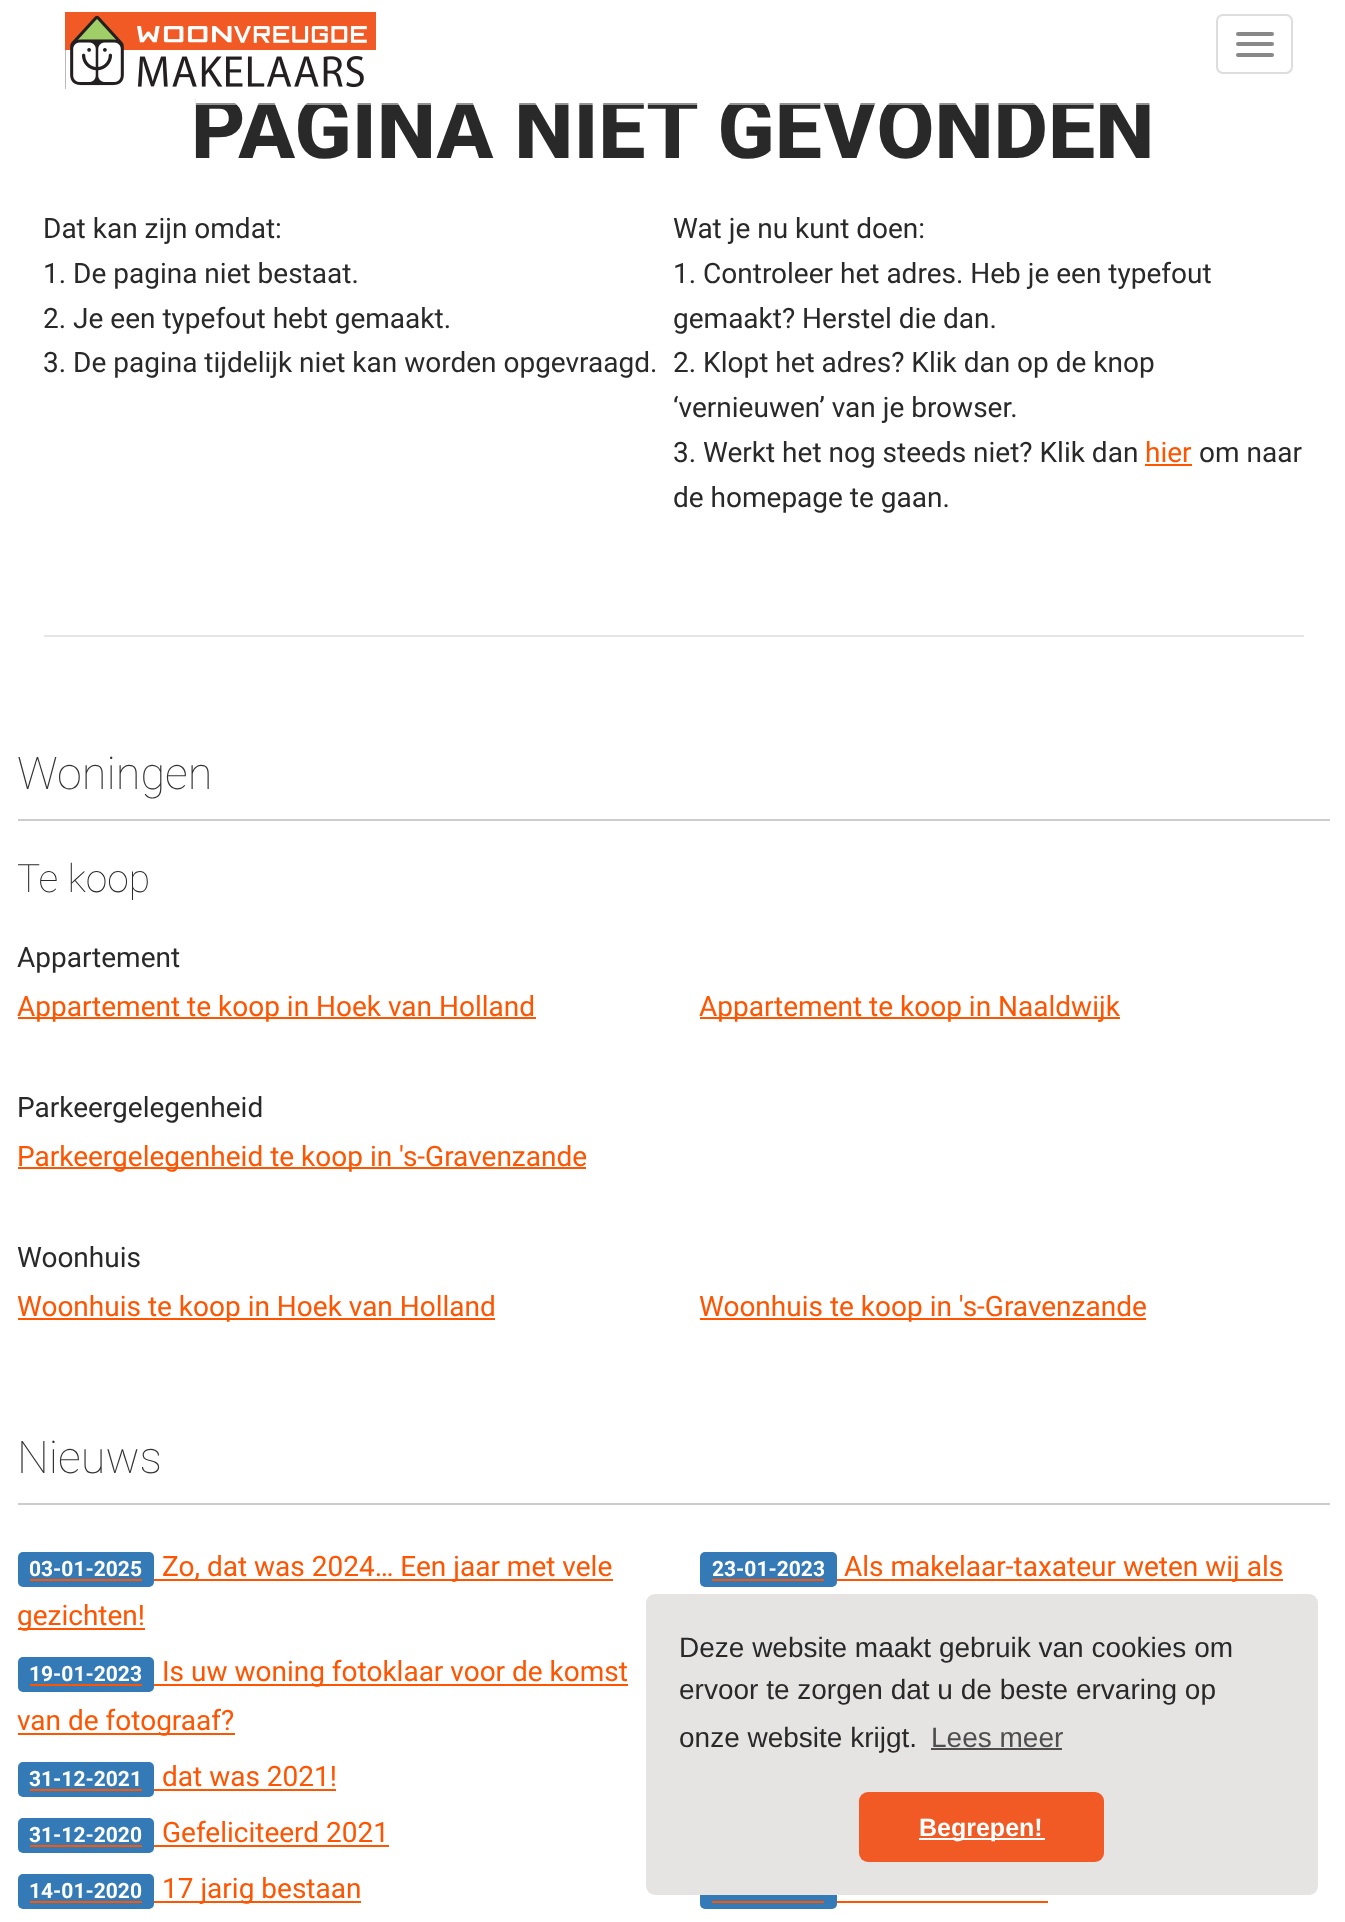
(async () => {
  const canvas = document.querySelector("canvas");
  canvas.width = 1345;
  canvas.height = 1922;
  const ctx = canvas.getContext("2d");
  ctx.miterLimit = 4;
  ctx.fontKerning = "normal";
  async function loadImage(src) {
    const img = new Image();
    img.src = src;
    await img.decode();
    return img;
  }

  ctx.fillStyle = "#ffffff";
  ctx.fillRect(0, 0, 1345, 1922);
  ctx.drawImage(await loadImage("img/1.png"), 65, 12, 311, 77);
  ctx.beginPath();
  ctx.roundRect(1217, 15, 75, 58, 6);
  ctx.strokeStyle = "#dddddd";
  ctx.lineWidth = 2;
  ctx.stroke();
  ctx.fillStyle = "#888888";
  ctx.beginPath();
  ctx.roundRect(1236, 32, 38, 4, 2);
  ctx.fill();
  ctx.beginPath();
  ctx.roundRect(1236, 42, 38, 4, 2);
  ctx.fill();
  ctx.beginPath();
  ctx.roundRect(1236, 53, 38, 4, 2);
  ctx.fill();
  for (const [x, y, w, h, color] of [
    [44, 635, 1260, 2, "#e5e5e5"],
    [1145, 464, 47, 2, "#ff5400"],
    [18, 819, 1312, 2, "#cccccc"],
    [18, 1017, 518, 2, "#ff5400"],
    [700, 1017, 420, 2, "#ff5400"],
    [18, 1167, 568, 2, "#ff5400"],
    [18, 1318, 477, 2, "#ff5400"],
    [700, 1318, 446, 2, "#ff5400"],
    [18, 1503, 1312, 2, "#cccccc"],
  ]) {
    ctx.fillStyle = color;
    ctx.fillRect(x, y, w, h);
  }
  ctx.fillStyle = "#337ab7";
  ctx.beginPath();
  ctx.roundRect(18, 1552, 136, 35, 5);
  ctx.fill();
  for (const [x, y, w, h, color] of [
    [30, 1579, 112, 2, "#ff5400"],
    [154, 1579, 459, 2, "#ff5400"],
    [18, 1628, 127, 2, "#ff5400"],
  ]) {
    ctx.fillStyle = color;
    ctx.fillRect(x, y, w, h);
  }
  ctx.fillStyle = "#337ab7";
  ctx.beginPath();
  ctx.roundRect(700, 1552, 137, 35, 5);
  ctx.fill();
  ctx.fillStyle = "#ff5400";
  ctx.fillRect(712, 1579, 112, 2);
  ctx.fillRect(837, 1579, 446, 2);
  ctx.fillStyle = "#337ab7";
  ctx.beginPath();
  ctx.roundRect(18, 1657, 136, 35, 5);
  ctx.fill();
  for (const [x, y, w, h, color] of [
    [30, 1684, 112, 2, "#ff5400"],
    [154, 1684, 474, 2, "#ff5400"],
    [18, 1733, 217, 2, "#ff5400"],
  ]) {
    ctx.fillStyle = color;
    ctx.fillRect(x, y, w, h);
  }
  ctx.fillStyle = "#337ab7";
  ctx.beginPath();
  ctx.roundRect(18, 1762, 136, 35, 5);
  ctx.fill();
  ctx.fillStyle = "#ff5400";
  ctx.fillRect(30, 1789, 112, 2);
  ctx.fillRect(154, 1789, 182, 2);
  ctx.fillStyle = "#337ab7";
  ctx.beginPath();
  ctx.roundRect(18, 1818, 136, 35, 5);
  ctx.fill();
  ctx.fillStyle = "#ff5400";
  ctx.fillRect(30, 1845, 112, 2);
  ctx.fillRect(154, 1845, 235, 2);
  ctx.fillStyle = "#337ab7";
  ctx.beginPath();
  ctx.roundRect(18, 1874, 136, 35, 5);
  ctx.fill();
  ctx.fillStyle = "#ff5400";
  ctx.fillRect(30, 1901, 112, 2);
  ctx.fillRect(154, 1901, 207, 2);
  ctx.fillStyle = "#337ab7";
  ctx.beginPath();
  ctx.roundRect(700, 1874, 137, 35, 5);
  ctx.fill();
  ctx.fillStyle = "#ff5400";
  ctx.fillRect(712, 1901, 112, 2);
  ctx.fillRect(837, 1901, 211, 2);
  ctx.fillStyle = "#e6e3e3";
  ctx.beginPath();
  ctx.roundRect(646, 1594, 672, 301, 9);
  ctx.fill();
  ctx.fillStyle = "#4f4e4e";
  ctx.fillRect(931, 1748, 131, 2);
  ctx.fillStyle = "#f15a25";
  ctx.beginPath();
  ctx.roundRect(859, 1792, 245, 70, 9);
  ctx.fill();
  ctx.fillStyle = "#ffffff";
  ctx.fillRect(919, 1838, 126, 2);
  ctx.font = "800 84px Roboto";
  ctx.fillStyle = "#292929";
  ctx.fillText("PAGINA NIET GEVONDEN", 191, 158);
  ctx.fillStyle = "#ffffff";
  ctx.fillRect(196, 97, 954, 6);
  ctx.fillStyle = "rgba(255, 255, 255, 0.5)";
  ctx.fillRect(196, 103, 954, 2);
  ctx.font = "28px Roboto";
  ctx.fillStyle = "#292929";
  for (const [text, x, y] of [
    ["Dat kan zijn omdat:", 43, 238],
    ["1. De pagina niet bestaat.", 43, 283],
    ["2. Je een typefout hebt gemaakt.", 43, 328],
    ["3. De pagina tijdelijk niet kan worden opgevraagd.", 43, 372],
    ["Wat je nu kunt doen:", 673, 238],
    ["1. Controleer het adres. Heb je een typefout", 673, 283],
    ["gemaakt? Herstel die dan.", 673, 328],
    ["2. Klopt het adres? Klik dan op de knop", 673, 372],
    ["‘vernieuwen’ van je browser.", 673, 417],
    ["3. Werkt het nog steeds niet? Klik dan", 673, 462],
  ]) {
    ctx.fillText(text, x, y);
  }
  ctx.fillStyle = "#ff5400";
  ctx.fillText("hier", 1145, 462);
  ctx.fillStyle = "#292929";
  ctx.fillText("om naar", 1199, 462);
  ctx.fillText("de homepage te gaan.", 673, 507);
  ctx.font = "100 45px Roboto";
  ctx.fillStyle = "#333333";
  ctx.fillText("Woningen", 17, 789);
  ctx.font = "100 39px Roboto";
  ctx.fillStyle = "#292929";
  ctx.fillText("Te koop", 17, 892);
  ctx.font = "28px Roboto";
  ctx.fillText("Appartement", 17, 967);
  ctx.fillStyle = "#ff5400";
  ctx.fillText("Appartement te koop in Hoek van Holland", 17, 1016);
  ctx.fillText("Appartement te koop in Naaldwijk", 699, 1016);
  ctx.fillStyle = "#292929";
  ctx.fillText("Parkeergelegenheid", 17, 1117);
  ctx.fillStyle = "#ff5400";
  ctx.fillText("Parkeergelegenheid te koop in 's-Gravenzande", 17, 1166);
  ctx.fillStyle = "#292929";
  ctx.fillText("Woonhuis", 17, 1267);
  ctx.fillStyle = "#ff5400";
  ctx.fillText("Woonhuis te koop in Hoek van Holland", 17, 1316);
  ctx.fillText("Woonhuis te koop in 's-Gravenzande", 699, 1316);
  ctx.font = "100 45px Roboto";
  ctx.fillStyle = "#333333";
  ctx.fillText("Nieuws", 17, 1473);
  ctx.font = "bold 21px Roboto";
  ctx.fillStyle = "#ffffff";
  ctx.fillText("03-01-2025", 29, 1576);
  ctx.font = "28px Roboto";
  ctx.fillStyle = "#ff5400";
  ctx.fillText("Zo, dat was 2024… Een jaar met vele", 162, 1576);
  ctx.fillText("gezichten!", 17, 1625);
  ctx.font = "bold 21px Roboto";
  ctx.fillStyle = "#ffffff";
  ctx.fillText("23-01-2023", 712, 1576);
  ctx.font = "28px Roboto";
  ctx.fillStyle = "#ff5400";
  ctx.fillText("Als makelaar-taxateur weten wij als", 844, 1576);
  ctx.font = "bold 21px Roboto";
  ctx.fillStyle = "#ffffff";
  ctx.fillText("19-01-2023", 29, 1681);
  ctx.font = "28px Roboto";
  ctx.fillStyle = "#ff5400";
  ctx.fillText("Is uw woning fotoklaar voor de komst", 162, 1681);
  ctx.fillText("van de fotograaf?", 17, 1730);
  ctx.font = "bold 21px Roboto";
  ctx.fillStyle = "#ffffff";
  ctx.fillText("31-12-2021", 29, 1786);
  ctx.font = "28px Roboto";
  ctx.fillStyle = "#ff5400";
  ctx.fillText("dat was 2021!", 162, 1786);
  ctx.font = "bold 21px Roboto";
  ctx.fillStyle = "#ffffff";
  ctx.fillText("31-12-2020", 29, 1842);
  ctx.font = "28px Roboto";
  ctx.fillStyle = "#ff5400";
  ctx.fillText("Gefeliciteerd 2021", 162, 1842);
  ctx.font = "bold 21px Roboto";
  ctx.fillStyle = "#ffffff";
  ctx.fillText("14-01-2020", 29, 1898);
  ctx.font = "28px Roboto";
  ctx.fillStyle = "#ff5400";
  ctx.fillText("17 jarig bestaan", 162, 1898);
  ctx.font = "28px Liberation Sans";
  ctx.fillStyle = "#292929";
  for (const [text, x, y] of [
    ["Deze website maakt gebruik van cookies om", 679, 1657],
    ["ervoor te zorgen dat u de beste ervaring op", 679, 1699],
    ["onze website krijgt.", 679, 1747],
  ]) {
    ctx.fillText(text, x, y);
  }
  ctx.fillStyle = "#4f4e4e";
  ctx.fillText("Lees meer", 931, 1747);
  ctx.font = "bold 25px Liberation Sans";
  ctx.fillStyle = "#ffffff";
  ctx.fillText("Begrepen!", 919, 1836);
})();
